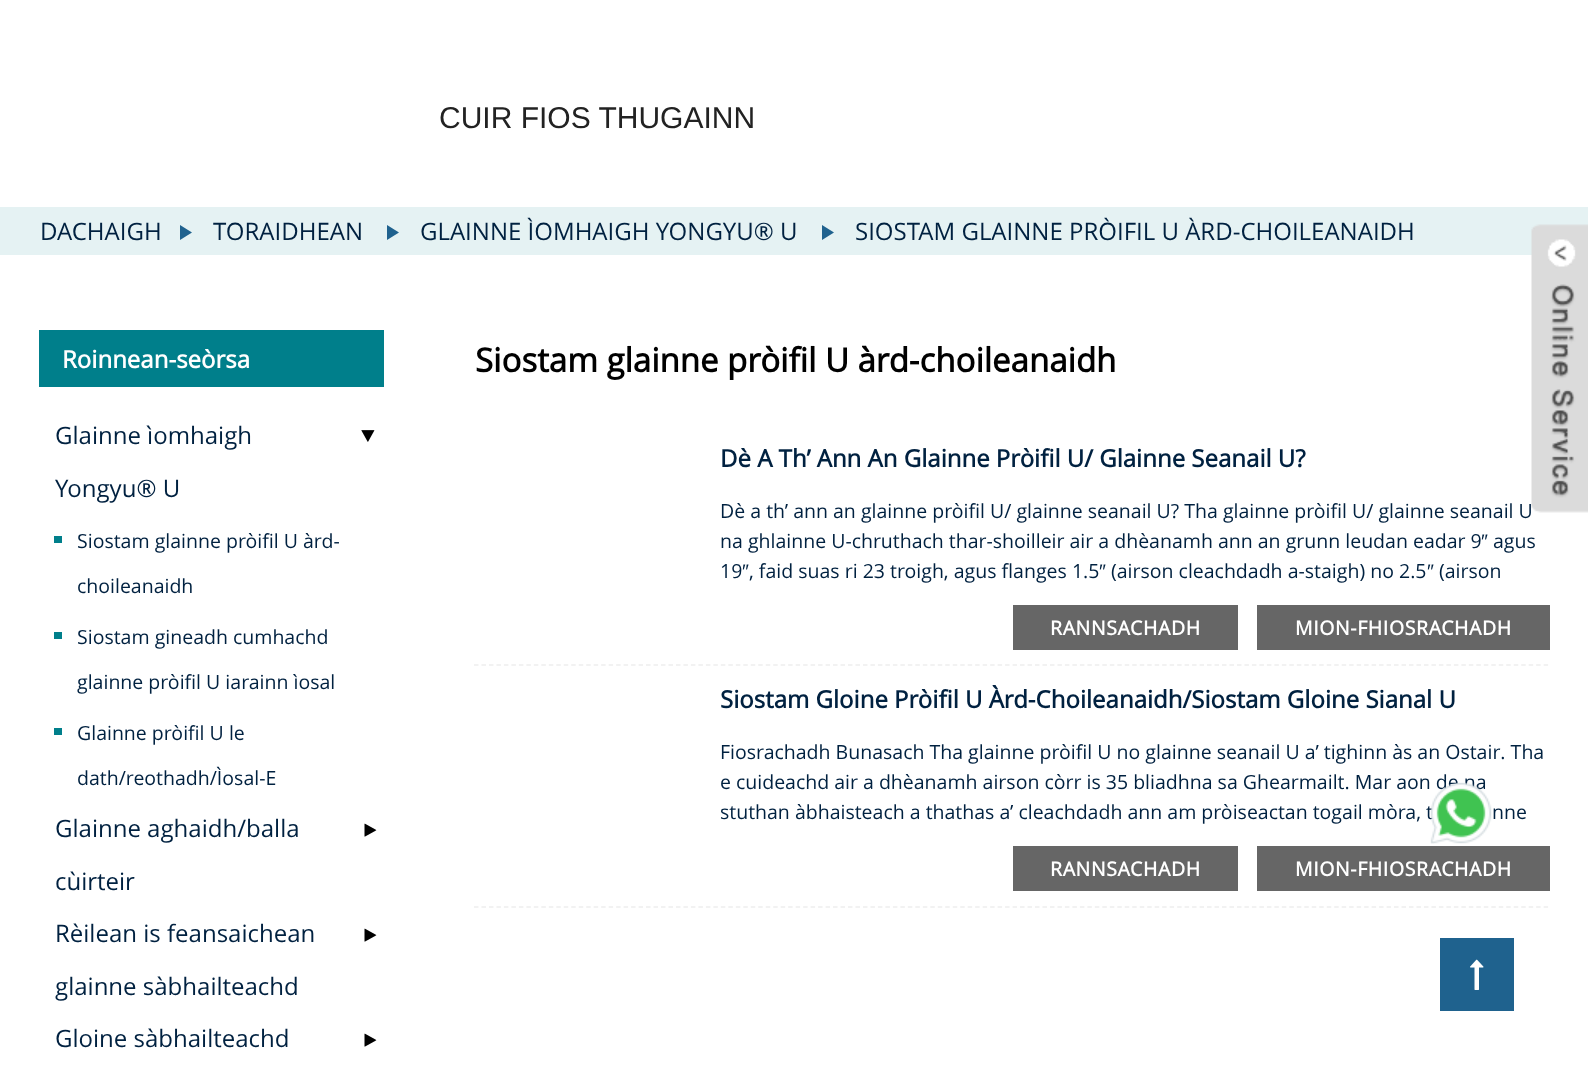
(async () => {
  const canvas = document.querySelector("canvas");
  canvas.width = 1588;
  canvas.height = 1086;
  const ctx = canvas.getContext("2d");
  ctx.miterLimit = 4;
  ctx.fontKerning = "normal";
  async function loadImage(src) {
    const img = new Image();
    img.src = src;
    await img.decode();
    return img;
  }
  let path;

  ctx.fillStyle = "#ffffff";
  ctx.fillRect(0, 0, 1588, 1086);
  ctx.fillStyle = "#e5f2f3";
  ctx.fillRect(0, 207, 1588, 48);
  ctx.fillStyle = "#1f628e";
  path = new Path2D("M180 240V225L192 232.5Z");
  ctx.fill(path);
  path = new Path2D("M387 240V225L399 232.5Z");
  ctx.fill(path);
  path = new Path2D("M822 240V225L834 232.5Z");
  ctx.fill(path);
  ctx.drawImage(await loadImage("img/1.png"), 1531, 224, 57, 289);
  ctx.fillStyle = "#007f8b";
  ctx.fillRect(39, 330, 345, 57);
  ctx.drawImage(await loadImage("img/2.png"), 361, 430, 14, 12);
  for (const [x, y, w, h, color] of [
    [54, 536, 8, 7, "#007f8b"],
    [54, 632, 8, 7, "#007f8b"],
    [54, 728, 8, 7, "#007f8b"],
  ]) {
    ctx.fillStyle = color;
    ctx.fillRect(x, y, w, h);
  }
  ctx.drawImage(await loadImage("img/3.png"), 364, 823, 13, 14);
  ctx.drawImage(await loadImage("img/3.png"), 364, 928, 13, 14);
  ctx.drawImage(await loadImage("img/3.png"), 364, 1033, 13, 14);
  path = new Path2D("M474 665H1549.5");
  ctx.strokeStyle = "#eeeeee";
  ctx.lineWidth = 1.5;
  ctx.setLineDash([4.5, 2.98]);
  ctx.stroke(path);
  ctx.fillStyle = "#666666";
  ctx.fillRect(1013, 605, 225, 45);
  ctx.fillRect(1257, 605, 293, 45);
  path = new Path2D("M474 907H1549.5");
  ctx.stroke(path);
  ctx.fillRect(1013, 846, 225, 45);
  ctx.fillRect(1257, 846, 293, 45);
  ctx.fillStyle = "#1f628e";
  ctx.beginPath();
  ctx.rect(1441.5, 939.5, 71, 70);
  ctx.fill();
  ctx.strokeStyle = "#1f628e";
  ctx.lineWidth = 3;
  ctx.setLineDash([]);
  ctx.stroke();
  ctx.drawImage(await loadImage("img/5.png"), 1470, 959, 14, 31);
  ctx.font = "30px Liberation Sans";
  ctx.fillStyle = "#222222";
  ctx.fillText("CUIR FIOS THUGAINN", 439, 128);
  ctx.font = "24px Open Sans";
  ctx.fillStyle = "#002140";
  for (const [text, x, y] of [
    ["DACHAIGH", 40, 240],
    ["TORAIDHEAN", 213, 240],
    ["GLAINNE ÌOMHAIGH YONGYU® U", 420, 240],
    ["SIOSTAM GLAINNE PRÒIFIL U ÀRD-CHOILEANAIDH", 855, 240],
  ]) {
    ctx.fillText(text, x, y);
  }
  ctx.font = "bold 24px Open Sans";
  ctx.fillStyle = "#ffffff";
  ctx.fillText("Roinnean-seòrsa", 62, 368);
  ctx.font = "24px Open Sans";
  ctx.fillStyle = "#002140";
  ctx.fillText("Glainne ìomhaigh", 55, 444);
  ctx.fillText("Yongyu® U", 55, 497);
  ctx.font = "19.5px Open Sans";
  for (const [text, x, y] of [
    ["Siostam glainne pròifil U àrd-", 77, 548],
    ["choileanaidh", 77, 593],
    ["Siostam gineadh cumhachd", 77, 644],
    ["glainne pròifil U iarainn ìosal", 77, 689],
    ["Glainne pròifil U le", 77, 740],
    ["dath/reothadh/Ìosal-E", 77, 785],
  ]) {
    ctx.fillText(text, x, y);
  }
  ctx.font = "24px Open Sans";
  for (const [text, x, y] of [
    ["Glainne aghaidh/balla", 55, 837],
    ["cùirteir", 55, 890],
    ["Rèilean is feansaichean", 55, 942],
    ["glainne sàbhailteachd", 55, 995],
    ["Gloine sàbhailteachd", 55, 1047],
  ]) {
    ctx.fillText(text, x, y);
  }
  ctx.font = "bold 33px Open Sans";
  ctx.fillStyle = "#000000";
  ctx.fillText("Siostam glainne pròifil U àrd-choileanaidh", 475, 372);
  ctx.font = "bold 24px Open Sans";
  ctx.fillStyle = "#002140";
  ctx.fillText("Dè A Th’ Ann An Glainne Pròifil U/ Glainne Seanail U?", 720, 467);
  ctx.font = "19.5px Open Sans";
  ctx.fillText("Dè a th’ ann an glainne pròifil U/ glainne seanail U? Tha glainne pròifil U/ glainne seanail U", 720, 518);
  ctx.fillText("na ghlainne U-chruthach thar-shoilleir air a dhèanamh ann an grunn leudan eadar 9", 720, 548);
  ctx.font = "19.5px Liberation Sans";
  ctx.fillText("″", 1481, 548);
  ctx.font = "19.5px Open Sans";
  ctx.fillText("agus", 1493, 548);
  ctx.fillText("19", 720, 578);
  ctx.font = "19.5px Liberation Sans";
  ctx.fillText("″", 742, 578);
  ctx.font = "19.5px Open Sans";
  ctx.fillText(", faid suas ri 23 troigh, agus flanges 1.5", 749, 578);
  ctx.font = "19.5px Liberation Sans";
  ctx.fillText("″", 1099, 578);
  ctx.font = "19.5px Open Sans";
  ctx.fillText("(airson cleachdadh a-staigh) no 2.5", 1111, 578);
  ctx.font = "19.5px Liberation Sans";
  ctx.fillText("″", 1427, 578);
  ctx.font = "19.5px Open Sans";
  ctx.fillText("(airson", 1439, 578);
  ctx.letterSpacing = "0.6px";
  ctx.font = "bold 19.5px Open Sans";
  ctx.fillStyle = "#ffffff";
  ctx.fillText("RANNSACHADH", 1050, 635);
  ctx.fillText("MION-FHIOSRACHADH", 1295, 635);
  ctx.letterSpacing = "0px";
  ctx.font = "bold 24px Open Sans";
  ctx.fillStyle = "#002140";
  ctx.fillText("Siostam Gloine Pròifil U Àrd-Choileanaidh/Siostam Gloine Sianal U", 720, 708);
  ctx.font = "19.5px Open Sans";
  for (const [text, x, y] of [
    ["Fiosrachadh Bunasach Tha glainne pròifil U no glainne seanail U a’ tighinn às an Ostair. Tha", 720, 759],
    ["e cuideachd air a dhèanamh airson còrr is 35 bliadhna sa Ghearmailt. Mar aon de na", 720, 789],
    ["stuthan àbhaisteach a thathas a’ cleachdadh ann am pròiseactan togail mòra, t", 720, 819],
    ["nne", 1492, 819],
  ]) {
    ctx.fillText(text, x, y);
  }
  ctx.letterSpacing = "0.6px";
  ctx.font = "bold 19.5px Open Sans";
  ctx.fillStyle = "#ffffff";
  ctx.fillText("RANNSACHADH", 1050, 876);
  ctx.fillText("MION-FHIOSRACHADH", 1295, 876);
  ctx.drawImage(await loadImage("img/4.png"), 1430, 782, 62, 62);
})();
